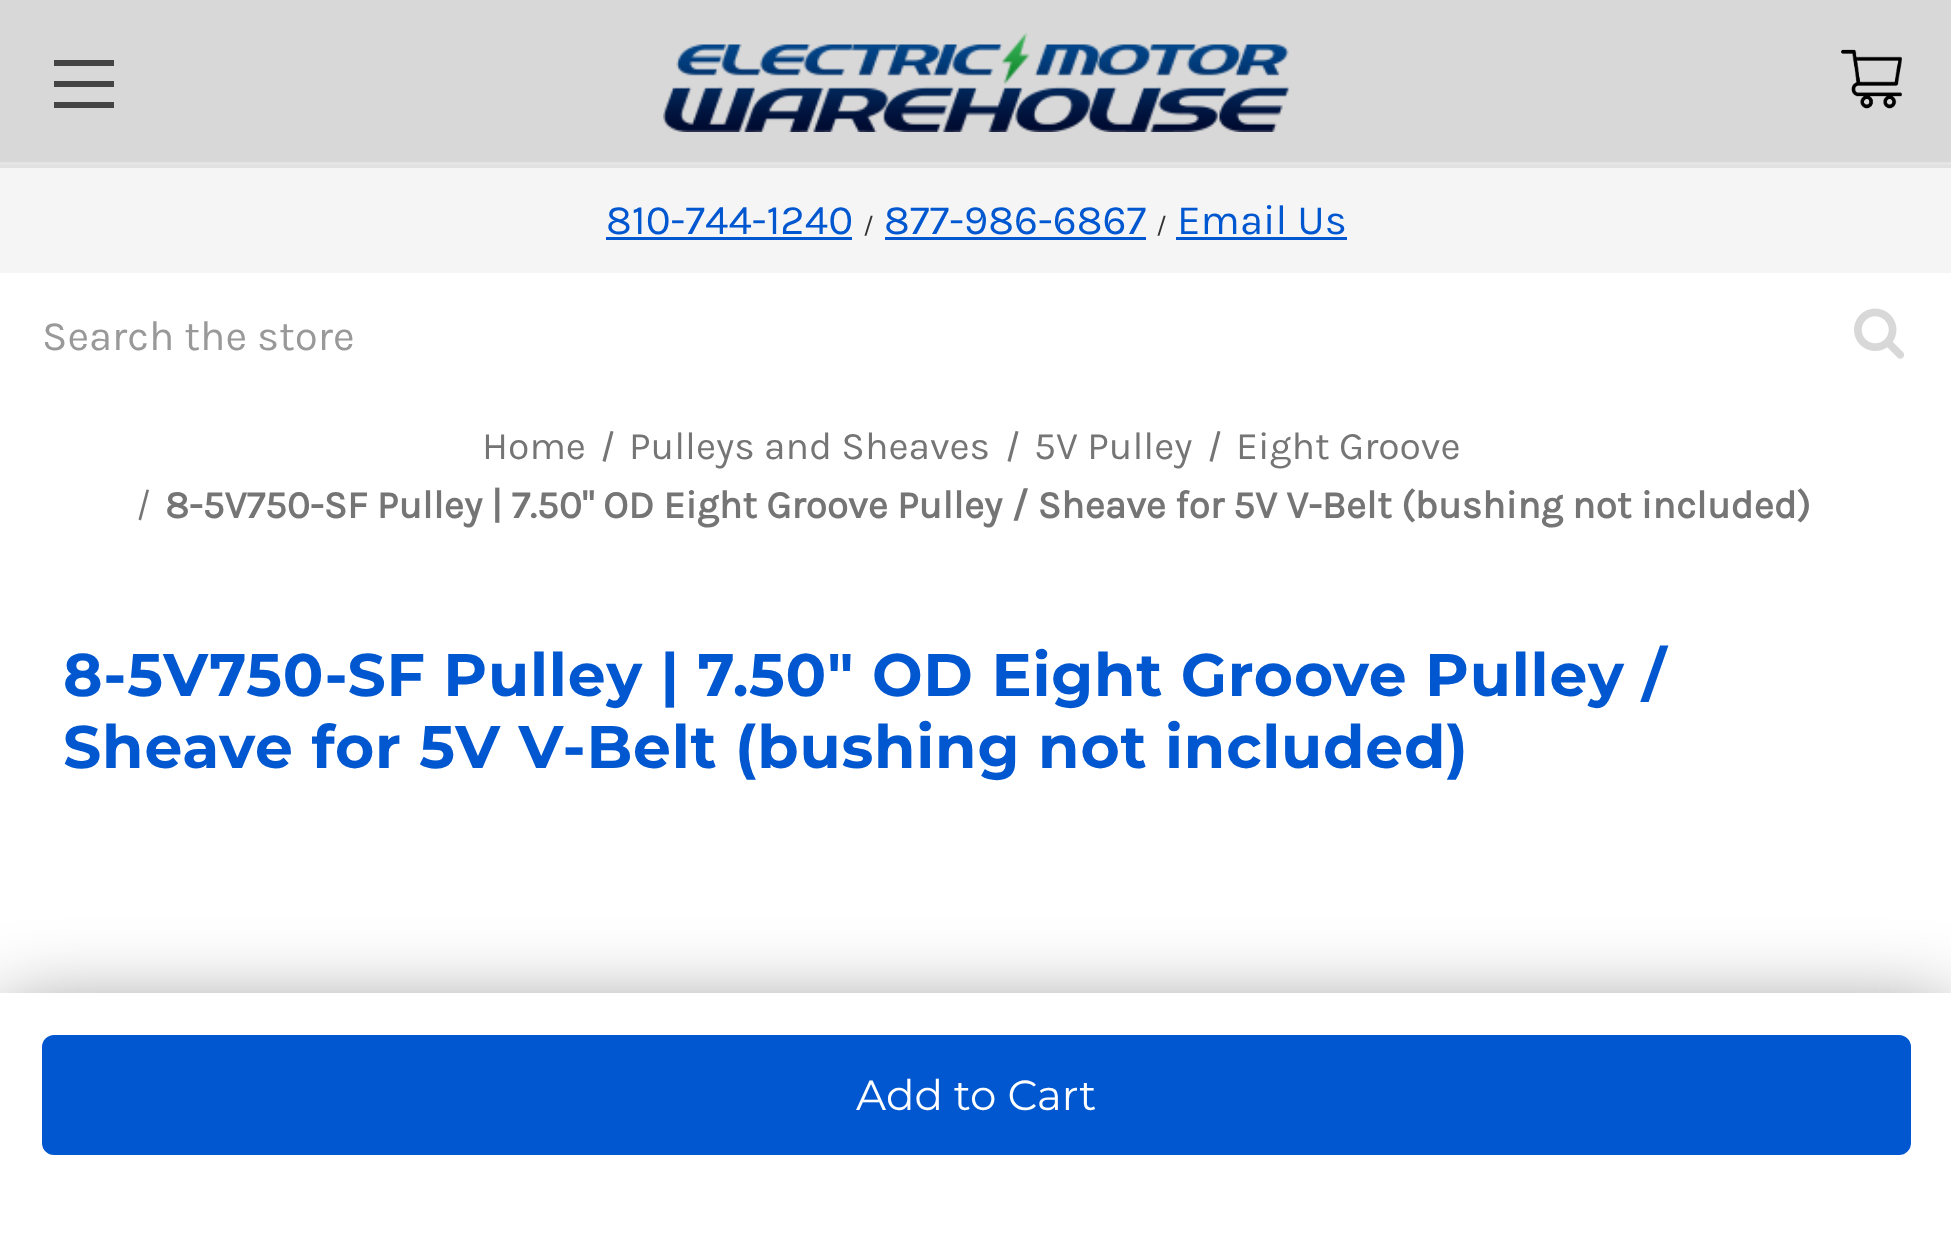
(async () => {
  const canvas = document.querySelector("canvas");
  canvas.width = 1951;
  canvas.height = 1248;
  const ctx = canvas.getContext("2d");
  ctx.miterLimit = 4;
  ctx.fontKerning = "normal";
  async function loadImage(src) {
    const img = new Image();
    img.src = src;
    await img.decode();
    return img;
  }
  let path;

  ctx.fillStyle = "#ffffff";
  ctx.fillRect(0, 0, 1951, 1248);
  for (const [x, y, w, h, color] of [
    [0, 0, 1951, 162, "#d8d8d8"],
    [0, 162, 1951, 3, "#e5e5e5"],
    [54, 81, 60, 6, "#444444"],
    [54, 60, 60, 6, "#444444"],
    [54, 102, 60, 6, "#444444"],
  ]) {
    ctx.fillStyle = color;
    ctx.fillRect(x, y, w, h);
  }
  ctx.drawImage(await loadImage("img/1.png"), 663, 33, 627, 99);
  ctx.drawImage(await loadImage("img/2.png"), 1841, 49, 61, 60);
  for (const [x, y, w, h, color] of [
    [0, 168, 1951, 105, "#f5f5f5"],
    [0, 165, 1951, 3, "#e1e1e1"],
    [606, 237, 246, 3, "#0157cf"],
    [885, 237, 261, 3, "#0157cf"],
    [1176, 237, 171, 3, "#0157cf"],
  ]) {
    ctx.fillStyle = color;
    ctx.fillRect(x, y, w, h);
  }
  ctx.drawImage(await loadImage("img/3.png"), 1854, 308, 50, 51);
  ctx.fillStyle = "#757575";
  path = new Path2D("M610.5 431L613.5 431.5L605.5 462L602.5 461Z");
  ctx.fill(path);
  path = new Path2D("M1015.5 431L1018.5 431.5L1010.5 462L1007.5 461Z");
  ctx.fill(path);
  path = new Path2D("M1217.5 431L1220.5 431.5L1212.5 462L1209.5 461Z");
  ctx.fill(path);
  path = new Path2D("M146.5 489.5L149 490L141 520.5L138.5 519.5Z");
  ctx.fill(path);
  ctx.fillStyle = "rgba(0, 0, 0, 0.5)";
  ctx.filter = "blur(42px)";
  ctx.beginPath();
  ctx.rect(0, 1014, 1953, 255);
  ctx.fill();
  ctx.filter = "none";
  ctx.fillStyle = "#ffffff";
  ctx.fillRect(0, 993, 1951, 255);
  ctx.fillStyle = "#0157cf";
  ctx.beginPath();
  ctx.roundRect(43.5, 1036.5, 1866, 117, 10.5);
  ctx.fill();
  ctx.strokeStyle = "#0157cf";
  ctx.lineWidth = 3;
  ctx.stroke();
  ctx.font = "42px Karla";
  ctx.fillText("810-744-1240", 606, 234);
  ctx.font = "25px Karla";
  ctx.fillStyle = "#333333";
  ctx.fillText("/", 863, 234);
  ctx.font = "42px Karla";
  ctx.fillStyle = "#0157cf";
  ctx.fillText("877-986-6867", 884, 234);
  ctx.font = "25px Karla";
  ctx.fillStyle = "#333333";
  ctx.fillText("/", 1156, 234);
  ctx.font = "42px Karla";
  ctx.fillStyle = "#0157cf";
  ctx.fillText("Email Us", 1177, 234);
  ctx.fillStyle = "#999999";
  ctx.fillText("Search the store", 42, 350);
  ctx.font = "39px Karla";
  ctx.fillStyle = "#757575";
  for (const [text, x, y] of [
    ["Home", 482, 459],
    ["Pulleys and Sheaves", 629, 459],
    ["5V Pulley", 1034, 459],
    ["Eight Groove", 1236, 459],
  ]) {
    ctx.fillText(text, x, y);
  }
  ctx.font = "bold 39px Karla";
  ctx.fillText("8-5V750-SF Pulley | 7.50\" OD Eight Groove Pulley / Sheave for 5V V-Belt (bushing not included)", 165, 518);
  ctx.letterSpacing = "0.75px";
  ctx.font = "bold 60px Montserrat";
  ctx.fillStyle = "#0157cf";
  ctx.fillText("8-5V750-SF Pulley | 7.50\" OD Eight Groove Pulley /", 63, 696);
  ctx.fillText("Sheave for 5V V-Belt (bushing not included)", 63, 768);
  ctx.letterSpacing = "0px";
  ctx.font = "42px Montserrat";
  ctx.fillStyle = "#ffffff";
  ctx.fillText("Add to Cart", 856, 1110);
})();
